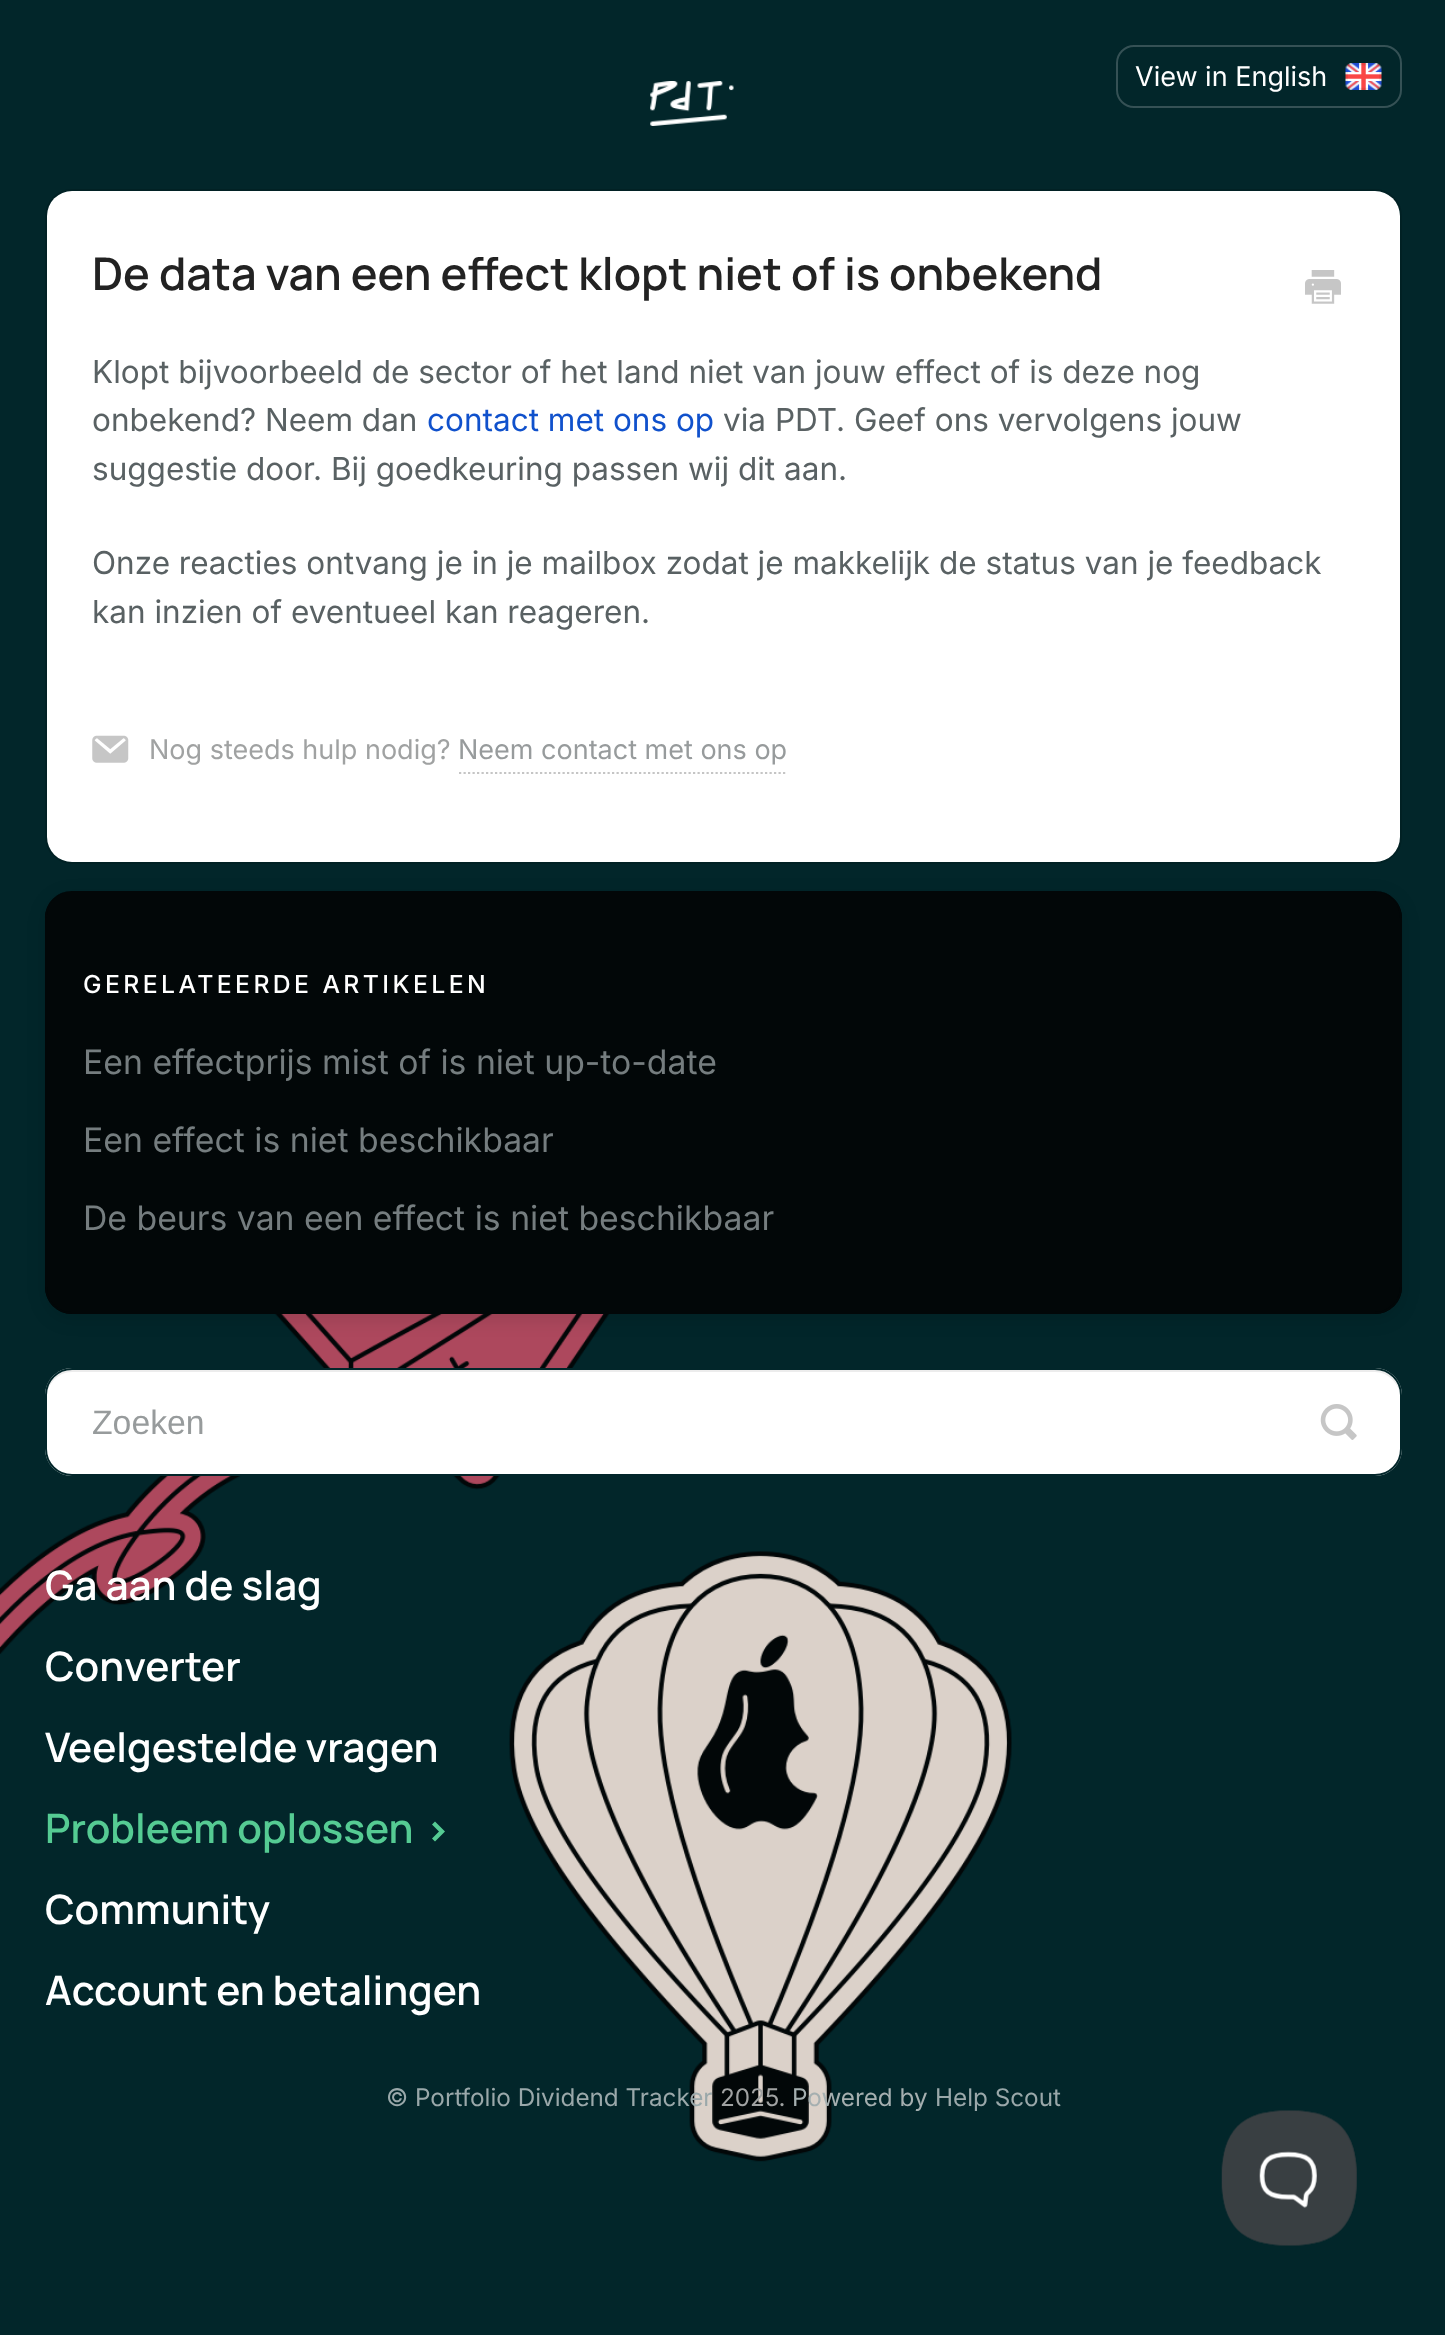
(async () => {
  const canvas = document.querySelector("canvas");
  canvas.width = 1445;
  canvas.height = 2335;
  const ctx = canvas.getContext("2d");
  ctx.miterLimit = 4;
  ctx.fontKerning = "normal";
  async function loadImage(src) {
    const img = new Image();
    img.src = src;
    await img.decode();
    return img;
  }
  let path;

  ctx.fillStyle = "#02262a";
  ctx.fillRect(0, 0, 1445, 2335);
  ctx.drawImage(await loadImage("img/1.png"), 0, 1314, 1012, 848);
  ctx.drawImage(await loadImage("img/2.png"), 650, 81, 84, 45);
  ctx.drawImage(await loadImage("img/3.png"), 1345, 63, 37, 27);
  ctx.beginPath();
  ctx.roundRect(1117, 46, 284, 61, 17);
  ctx.strokeStyle = "#355155";
  ctx.lineWidth = 2;
  ctx.stroke();
  ctx.fillStyle = "#ffffff";
  ctx.beginPath();
  ctx.roundRect(47, 191, 1353, 671, 25);
  ctx.fill();
  ctx.beginPath();
  ctx.roundRect(46, 190, 1355, 673, 26);
  ctx.strokeStyle = "rgba(0, 0, 0, 0.12)";
  ctx.stroke();
  ctx.drawImage(await loadImage("img/4.png"), 1305, 270, 36, 34);
  ctx.drawImage(await loadImage("img/5.png"), 92, 735, 37, 28);
  path = new Path2D("M459 773H787.5");
  ctx.strokeStyle = "#c5c5c5";
  ctx.lineWidth = 2.2;
  ctx.setLineDash([2.25, 2.25]);
  ctx.stroke(path);
  ctx.fillStyle = "rgba(0, 0, 0, 0.12)";
  ctx.filter = "blur(9px)";
  ctx.beginPath();
  ctx.roundRect(45, 896, 1357, 423, 27);
  ctx.fill();
  ctx.filter = "none";
  ctx.fillStyle = "#020708";
  ctx.beginPath();
  ctx.roundRect(45, 891, 1357, 423, 27);
  ctx.fill();
  path = new Path2D("M72 891H1375C1390 891 1402 903 1402 918V1287C1402 1302 1390 1314 1375 1314H72C57 1314 45 1302 45 1287V918C45 903 57 891 72 891ZM72 891H1375C1388 891 1400 903 1400 918V1287C1400 1301 1388 1312 1375 1312H72C58 1312 47 1301 47 1287V918C47 903 58 891 72 891Z");
  ctx.fill(path, "evenodd");
  ctx.fillStyle = "#ffffff";
  ctx.beginPath();
  ctx.roundRect(45, 1368, 1357, 108, 27);
  ctx.fill();
  ctx.fillStyle = "#ececec";
  path = new Path2D("M72 1372H1375C1388 1372 1400 1384 1400 1397C1400 1382 1390 1370 1375 1370H72C57 1370 47 1382 47 1397C47 1384 58 1372 72 1372Z");
  ctx.fill(path);
  ctx.beginPath();
  ctx.roundRect(46, 1369, 1355, 106, 26);
  ctx.strokeStyle = "#02262a";
  ctx.lineWidth = 2;
  ctx.setLineDash([]);
  ctx.stroke();
  ctx.drawImage(await loadImage("img/6.png"), 1320, 1404, 37, 36);
  ctx.fillStyle = "#55cb93";
  path = new Path2D("M435 1821.5L432 1824.5L439 1831.5L432 1838.5L435 1841.5L445 1831.5Z");
  ctx.fill(path);
  ctx.drawImage(await loadImage("img/7.png"), 1221, 2110, 136, 136);
  ctx.font = "27px Inter";
  ctx.fillStyle = "#ffffff";
  ctx.fillText("View in English", 1135, 86);
  ctx.font = "200 45px Manrope";
  ctx.fillStyle = "#222222";
  ctx.fillText("De data van een effect klopt niet of is onbekend", 92, 290);
  ctx.font = "31.5px Inter";
  ctx.fillStyle = "#596163";
  ctx.fillText("Klopt bijvoorbeeld de sector of het land niet van jouw effect of is deze nog", 92, 383);
  ctx.fillText("onbekend? Neem dan", 92, 431);
  ctx.fillStyle = "#1051cc";
  ctx.fillText("contact met ons op", 427, 431);
  ctx.fillStyle = "#596163";
  for (const [text, x, y] of [
    ["via PDT. Geef ons vervolgens jouw", 723, 431],
    ["suggestie door. Bij goedkeuring passen wij dit aan.", 92, 480],
    ["Onze reacties ontvang je in je mailbox zodat je makkelijk de status van je feedback", 92, 574],
    ["kan inzien of eventueel kan reageren.", 92, 623],
  ]) {
    ctx.fillText(text, x, y);
  }
  ctx.font = "27px Inter";
  ctx.fillStyle = "#a0a2a2";
  ctx.fillText("Nog steeds hulp nodig?", 149, 759);
  ctx.fillStyle = "#979b9c";
  ctx.fillText("Neem contact met ons op", 458, 759);
  ctx.letterSpacing = "3.4px";
  ctx.font = "500 24.75px Inter";
  ctx.fillStyle = "#ffffff";
  ctx.fillText("GERELATEERDE ARTIKELEN", 83, 993);
  ctx.letterSpacing = "0px";
  ctx.font = "33.75px Inter";
  ctx.fillStyle = "#757d7f";
  for (const [text, x, y] of [
    ["Een effectprijs mist of is niet up-to-date", 83, 1074],
    ["Een effect is niet beschikbaar", 83, 1152],
    ["De beurs van een effect is niet beschikbaar", 83, 1230],
  ]) {
    ctx.fillText(text, x, y);
  }
  ctx.font = "33.75px Liberation Sans";
  ctx.fillStyle = "#979b9c";
  ctx.fillText("Zoeken", 92, 1434);
  ctx.font = "200 40.5px Manrope";
  ctx.fillStyle = "#ffffff";
  for (const [text, x, y] of [
    ["Ga aan de slag", 45, 1600],
    ["Converter", 45, 1681],
    ["Veelgestelde vragen", 45, 1762],
  ]) {
    ctx.fillText(text, x, y);
  }
  ctx.fillStyle = "#55cb93";
  ctx.fillText("Probleem oplossen", 45, 1843);
  ctx.fillStyle = "#ffffff";
  ctx.fillText("Community", 45, 1924);
  ctx.fillText("Account en betalingen", 45, 2005);
  ctx.font = "24.25px Inter";
  ctx.fillStyle = "#9aa8aa";
  ctx.fillText("©", 386, 2106);
  ctx.fillText("Portfolio Dividend Tracker", 415, 2106);
  ctx.fillStyle = "#a0a2a2";
  ctx.fillText("2025.", 720, 2106);
  ctx.fillStyle = "#a5afb0";
  ctx.fillText("Powered by", 792, 2106);
  ctx.fillStyle = "#9aa8aa";
  ctx.fillText("Help Scout", 935, 2106);
})();
